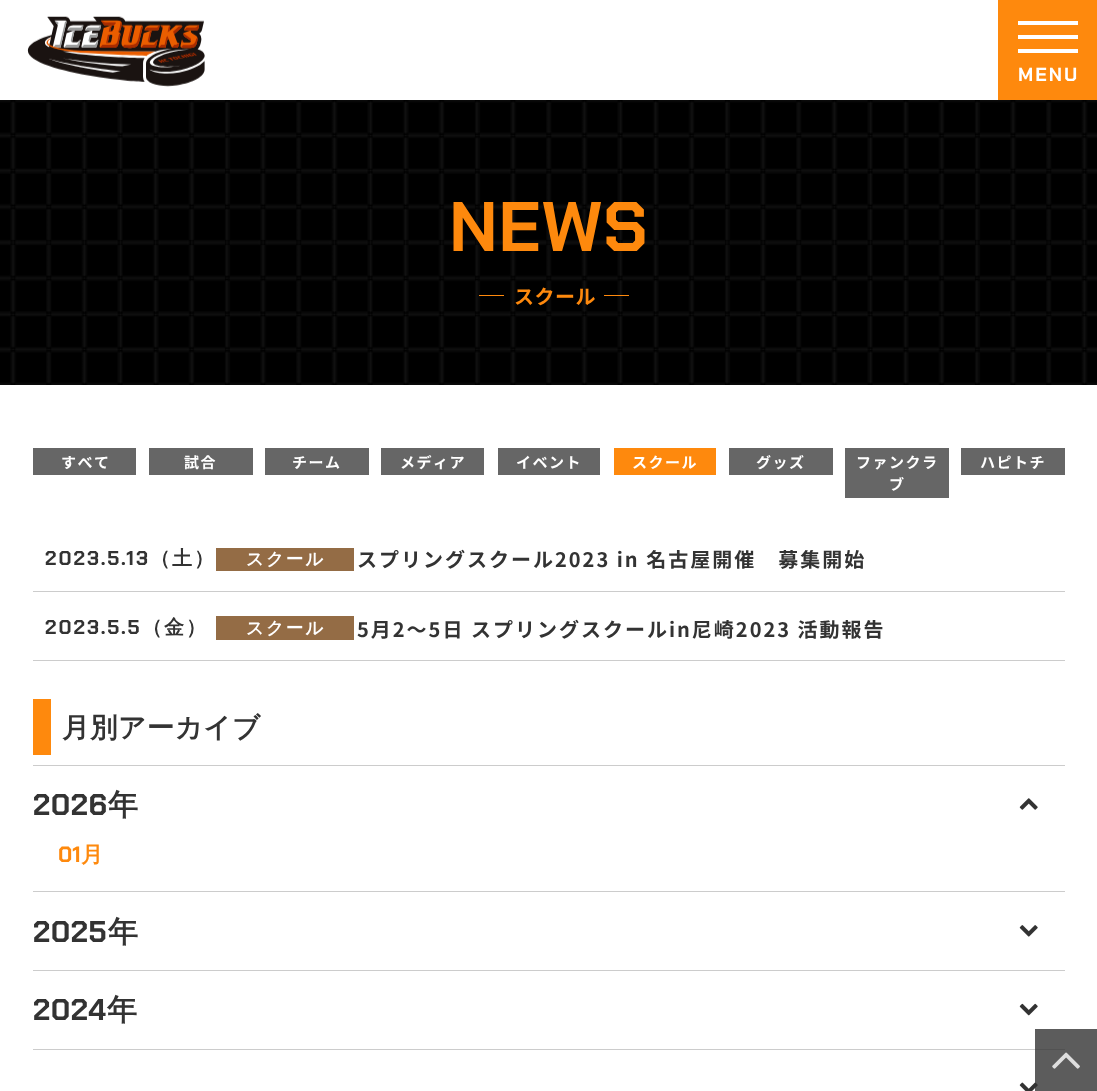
(async () => {
  const canvas = document.querySelector("canvas");
  canvas.width = 1097;
  canvas.height = 1091;
  const ctx = canvas.getContext("2d");
  ctx.miterLimit = 4;
  ctx.fontKerning = "normal";
  async function loadImage(src) {
    const img = new Image();
    img.src = src;
    await img.decode();
    return img;
  }

  ctx.fillStyle = "#ffffff";
  ctx.fillRect(0, 0, 1097, 1091);
  ctx.drawImage(await loadImage("img/1.png"), 27, 16, 178, 71);
  for (const [x, y, w, h, color] of [
    [998, 0, 99, 100, "#fe890d"],
    [1018, 21, 60, 4, "#ffffff"],
    [1018, 35, 60, 4, "#ffffff"],
    [1018, 49, 60, 4, "#ffffff"],
  ]) {
    ctx.fillStyle = color;
    ctx.fillRect(x, y, w, h);
  }
  ctx.drawImage(await loadImage("img/2.png"), 0, 100, 1097, 285);
  for (const [x, y, w, h, color] of [
    [479, 295, 25, 1, "#fe890d"],
    [604, 295, 25, 1, "#fe890d"],
    [33, 448, 103, 27, "#666666"],
    [149, 448, 104, 27, "#666666"],
    [265, 448, 104, 27, "#666666"],
    [381, 448, 103, 27, "#666666"],
    [498, 448, 102, 27, "#666666"],
    [614, 448, 102, 27, "#fe890d"],
    [729, 448, 104, 27, "#666666"],
    [845, 448, 104, 50, "#666666"],
    [961, 448, 104, 27, "#666666"],
    [33, 591, 1032, 1, "#cccccc"],
    [216, 548, 138, 23, "#946c45"],
    [33, 660, 1032, 1, "#cccccc"],
    [216, 616, 138, 24, "#946c45"],
    [33, 699, 18, 56, "#fe890d"],
    [33, 765, 1032, 1, "#cccccc"],
  ]) {
    ctx.fillStyle = color;
    ctx.fillRect(x, y, w, h);
  }
  ctx.drawImage(await loadImage("img/3.png"), 1019, 798, 19, 12);
  ctx.fillRect(33, 891, 1032, 1);
  ctx.drawImage(await loadImage("img/4.png"), 1019, 925, 19, 12);
  ctx.fillRect(33, 970, 1032, 1);
  ctx.drawImage(await loadImage("img/5.png"), 1019, 1003, 19, 13);
  ctx.fillRect(33, 1049, 1032, 1);
  ctx.drawImage(await loadImage("img/6.png"), 1019, 1082, 19, 9);
  ctx.fillStyle = "rgba(51, 51, 51, 0.8)";
  ctx.fillRect(1035, 1029, 62, 62);
  ctx.drawImage(await loadImage("img/7.png"), 1052, 1052, 28, 17);
  ctx.letterSpacing = "2px";
  ctx.font = "bold 19px Chakra Petch";
  ctx.fillStyle = "#ffffff";
  ctx.fillText("MENU", 1018, 81);
  ctx.letterSpacing = "0.5px";
  ctx.font = "bold 70px Chakra Petch";
  ctx.fillStyle = "#fe890d";
  ctx.fillText("NEWS", 449, 251);
  ctx.font = "bold 20px Noto Sans CJK JP";
  ctx.fillText("スクール", 514, 304);
  ctx.letterSpacing = "1.5px";
  ctx.font = "bold 15px Noto Sans CJK JP";
  ctx.fillStyle = "#ffffff";
  for (const [text, x, y] of [
    ["すべて", 61, 468],
    ["試合", 184, 468],
    ["チーム", 292, 468],
    ["メディア", 400, 468],
    ["イベント", 516, 468],
    ["スクール", 632, 468],
    ["グッズ", 756, 468],
    ["ファンクラ", 856, 468],
    ["ブ", 889, 490],
    ["ハピトチ", 980, 468],
  ]) {
    ctx.fillText(text, x, y);
  }
  ctx.letterSpacing = "2px";
  ctx.font = "bold 20px Chakra Petch";
  ctx.fillStyle = "#333333";
  ctx.fillText("2023.5.13", 45, 565);
  ctx.font = "bold 20px WenQuanYi Zen Hei";
  ctx.fillText("（土）", 150, 565);
  ctx.font = "bold 17.5px WenQuanYi Zen Hei";
  ctx.fillStyle = "#ffffff";
  ctx.fillText("スクール", 246, 565);
  ctx.font = "bold 20px Noto Sans CJK JP";
  ctx.fillStyle = "#333333";
  ctx.fillText("スプリングスクール2023 in 名古屋開催　募集開始", 357, 567);
  ctx.font = "bold 20px Chakra Petch";
  ctx.fillText("2023.5.5", 45, 634);
  ctx.font = "bold 20px WenQuanYi Zen Hei";
  ctx.fillText("（金）", 142, 634);
  ctx.font = "bold 17.5px WenQuanYi Zen Hei";
  ctx.fillStyle = "#ffffff";
  ctx.fillText("スクール", 246, 634);
  ctx.font = "bold 20px Noto Sans CJK JP";
  ctx.fillStyle = "#333333";
  ctx.fillText("5月2～5日 スプリングスクールin尼崎2023 活動報告", 357, 637);
  ctx.letterSpacing = "0.5px";
  ctx.font = "bold 27.5px WenQuanYi Zen Hei";
  ctx.fillText("月別アーカイブ", 62, 737);
  ctx.font = "bold 30px Chakra Petch";
  ctx.fillText("2026", 33, 815);
  ctx.font = "bold 30px WenQuanYi Zen Hei";
  ctx.fillText("年", 108, 815);
  ctx.letterSpacing = "0px";
  ctx.font = "bold 22px Chakra Petch";
  ctx.fillStyle = "#fe890d";
  ctx.fillText("01", 58, 862);
  ctx.font = "bold 22px WenQuanYi Zen Hei";
  ctx.fillText("月", 81, 862);
  ctx.letterSpacing = "0.5px";
  ctx.font = "bold 30px Chakra Petch";
  ctx.fillStyle = "#333333";
  ctx.fillText("2025", 33, 942);
  ctx.font = "bold 30px WenQuanYi Zen Hei";
  ctx.fillText("年", 108, 942);
  ctx.font = "bold 30px Chakra Petch";
  ctx.fillText("2024", 33, 1020);
  ctx.font = "bold 30px WenQuanYi Zen Hei";
  ctx.fillText("年", 107, 1020);
})();
